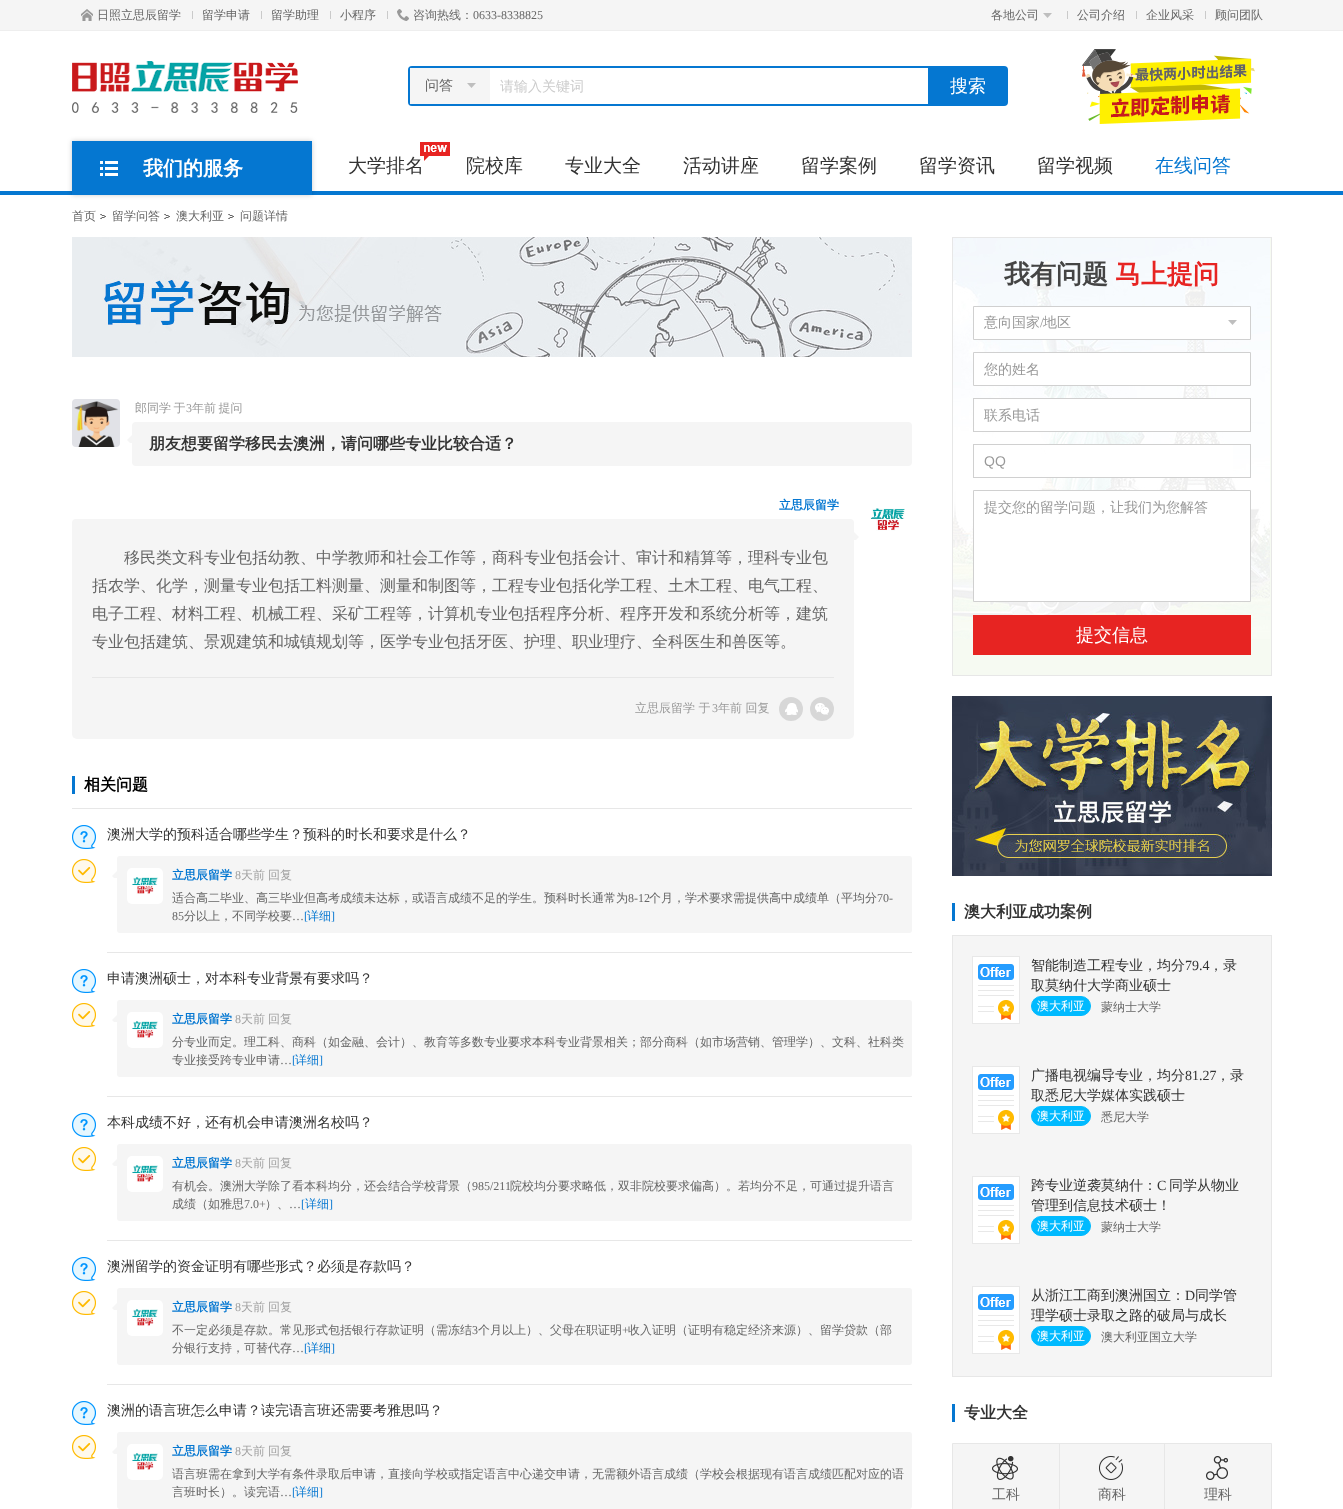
(async () => {
  const canvas = document.querySelector("canvas");
  canvas.width = 1343;
  canvas.height = 1509;
  const ctx = canvas.getContext("2d");
  ctx.miterLimit = 4;
  ctx.fontKerning = "normal";
  async function loadImage(src) {
    const img = new Image();
    img.src = src;
    await img.decode();
    return img;
  }

  ctx.fillStyle = "#ffffff";
  ctx.fillRect(0, 0, 1343, 1509);
  ctx.fillStyle = "#f5f5f5";
  ctx.fillRect(0, 0, 1343, 30);
  ctx.fillStyle = "#eeeeee";
  ctx.fillRect(0, 30, 1343, 1);
  ctx.drawImage(await loadImage("img/1.png"), 81, 9, 12, 12);
  for (const [x, y, w, h, color] of [
    [192, 11, 1, 8, "#cacaca"],
    [261, 11, 1, 8, "#cacaca"],
    [330, 11, 1, 8, "#cacaca"],
    [387, 11, 1, 8, "#cacaca"],
  ]) {
    ctx.fillStyle = color;
    ctx.fillRect(x, y, w, h);
  }
  ctx.drawImage(await loadImage("img/2.png"), 397, 9, 12, 12);
  ctx.drawImage(await loadImage("img/3.png"), 1043, 13, 9, 5);
  for (const [x, y, w, h, color] of [
    [1067, 11, 1, 8, "#cacaca"],
    [1136, 11, 1, 8, "#cacaca"],
    [1205, 11, 1, 8, "#cacaca"],
  ]) {
    ctx.fillStyle = color;
    ctx.fillRect(x, y, w, h);
  }
  ctx.drawImage(await loadImage("img/4.png"), 72, 61, 226, 52);
  ctx.fillStyle = "#0577d1";
  ctx.beginPath();
  ctx.roundRect(408, 66, 600, 40, 4);
  ctx.fill();
  ctx.fillStyle = "#f5f5f5";
  ctx.fillRect(410, 68, 80, 36);
  ctx.drawImage(await loadImage("img/3.png"), 467, 83, 9, 5);
  ctx.fillStyle = "#ffffff";
  ctx.fillRect(490, 68, 438, 36);
  ctx.drawImage(await loadImage("img/5.png"), 1082, 49, 173, 75);
  ctx.fillStyle = "#0577d1";
  ctx.fillRect(0, 191, 1343, 4);
  ctx.fillStyle = "rgba(0, 0, 0, 0.2)";
  ctx.filter = "blur(2.5px)";
  ctx.beginPath();
  ctx.rect(72, 141, 240, 54);
  ctx.fill();
  ctx.filter = "none";
  ctx.fillStyle = "#0577d1";
  ctx.fillRect(72, 141, 240, 54);
  ctx.drawImage(await loadImage("img/6.png"), 100, 161, 18, 15);
  ctx.drawImage(await loadImage("img/8.png"), 100, 214, 6, 5);
  ctx.drawImage(await loadImage("img/8.png"), 164, 214, 6, 5);
  ctx.drawImage(await loadImage("img/8.png"), 228, 214, 6, 5);
  ctx.drawImage(await loadImage("img/9.png"), 72, 237, 840, 120);
  ctx.drawImage(await loadImage("img/10.png"), 72, 399, 48, 48);
  ctx.fillStyle = "#f5f5f5";
  ctx.beginPath();
  ctx.roundRect(132, 422, 780, 44, 4);
  ctx.fill();
  ctx.drawImage(await loadImage("img/11.png"), 127, 435, 5, 8);
  ctx.beginPath();
  ctx.roundRect(72, 519, 782, 158, [4, 4, 0, 0]);
  ctx.fill();
  ctx.drawImage(await loadImage("img/12.png"), 854, 532, 5, 8);
  ctx.beginPath();
  ctx.roundRect(72, 677, 782, 62, [0, 0, 5, 5]);
  ctx.fill();
  ctx.fillStyle = "#e7e7e7";
  ctx.fillRect(92, 677, 742, 1);
  ctx.fillStyle = "#d7d7d7";
  ctx.beginPath();
  ctx.arc(791, 709, 12, 0, Math.PI * 2);
  ctx.fill();
  ctx.drawImage(await loadImage("img/13.png"), 785, 703, 13, 12);
  ctx.beginPath();
  ctx.arc(822, 709, 12, 0, Math.PI * 2);
  ctx.fill();
  ctx.drawImage(await loadImage("img/14.png"), 815, 703, 14, 12);
  ctx.drawImage(await loadImage("img/15.png"), 870, 508, 35, 23);
  ctx.fillStyle = "#e7e7e7";
  ctx.fillRect(72, 808, 840, 1);
  ctx.fillStyle = "#0577d1";
  ctx.fillRect(72, 776, 3, 18);
  ctx.drawImage(await loadImage("img/16.png"), 72, 825, 24, 24);
  ctx.drawImage(await loadImage("img/17.png"), 72, 859, 24, 24);
  ctx.fillStyle = "#f5f5f5";
  ctx.beginPath();
  ctx.roundRect(117, 856, 795, 77, 3);
  ctx.fill();
  ctx.drawImage(await loadImage("img/18.png"), 112, 871, 5, 7);
  ctx.drawImage(await loadImage("img/19.png"), 127, 868, 36, 36);
  ctx.fillStyle = "#e7e7e7";
  ctx.fillRect(107, 952, 805, 1);
  ctx.drawImage(await loadImage("img/16.png"), 72, 969, 24, 24);
  ctx.drawImage(await loadImage("img/17.png"), 72, 1003, 24, 24);
  ctx.fillStyle = "#f5f5f5";
  ctx.beginPath();
  ctx.roundRect(117, 1000, 795, 77, 3);
  ctx.fill();
  ctx.drawImage(await loadImage("img/18.png"), 112, 1015, 5, 7);
  ctx.drawImage(await loadImage("img/20.png"), 127, 1012, 36, 36);
  ctx.fillStyle = "#e7e7e7";
  ctx.fillRect(107, 1096, 805, 1);
  ctx.drawImage(await loadImage("img/16.png"), 72, 1113, 24, 24);
  ctx.drawImage(await loadImage("img/17.png"), 72, 1147, 24, 24);
  ctx.fillStyle = "#f5f5f5";
  ctx.beginPath();
  ctx.roundRect(117, 1144, 795, 77, 3);
  ctx.fill();
  ctx.drawImage(await loadImage("img/18.png"), 112, 1159, 5, 7);
  ctx.drawImage(await loadImage("img/21.png"), 127, 1156, 36, 36);
  ctx.fillStyle = "#e7e7e7";
  ctx.fillRect(107, 1240, 805, 1);
  ctx.drawImage(await loadImage("img/16.png"), 72, 1257, 24, 24);
  ctx.drawImage(await loadImage("img/17.png"), 72, 1291, 24, 24);
  ctx.fillStyle = "#f5f5f5";
  ctx.beginPath();
  ctx.roundRect(117, 1288, 795, 77, 3);
  ctx.fill();
  ctx.drawImage(await loadImage("img/18.png"), 112, 1303, 5, 7);
  ctx.drawImage(await loadImage("img/22.png"), 127, 1300, 36, 36);
  ctx.fillStyle = "#e7e7e7";
  ctx.fillRect(107, 1384, 805, 1);
  ctx.drawImage(await loadImage("img/16.png"), 72, 1401, 24, 24);
  ctx.drawImage(await loadImage("img/17.png"), 72, 1435, 24, 24);
  ctx.fillStyle = "#f5f5f5";
  ctx.beginPath();
  ctx.roundRect(117, 1432, 795, 77, 3);
  ctx.fill();
  ctx.drawImage(await loadImage("img/18.png"), 112, 1447, 5, 7);
  ctx.drawImage(await loadImage("img/22.png"), 127, 1444, 36, 36);
  ctx.fillStyle = "#f6faf2";
  ctx.fillRect(953, 238, 318, 437);
  ctx.drawImage(await loadImage("img/23.png"), 953, 238, 317, 401);
  ctx.strokeStyle = "#e7e7e7";
  ctx.strokeRect(952.5, 237.5, 319, 438);
  ctx.fillStyle = "#ffffff";
  ctx.beginPath();
  ctx.rect(973.5, 306.5, 277, 33);
  ctx.fill();
  ctx.strokeStyle = "#d0d0d0";
  ctx.stroke();
  ctx.drawImage(await loadImage("img/24.png"), 1228, 320, 9, 5);
  ctx.beginPath();
  ctx.rect(973.5, 352.5, 277, 33);
  ctx.fill();
  ctx.stroke();
  ctx.fillRect(975, 399, 275, 32);
  ctx.strokeRect(973.5, 398.5, 277, 33);
  ctx.fillRect(1046, 445, 187, 32);
  ctx.strokeRect(973.5, 444.5, 277, 33);
  ctx.beginPath();
  ctx.rect(973.5, 490.5, 277, 111);
  ctx.fill();
  ctx.stroke();
  ctx.fillStyle = "#e72422";
  ctx.fillRect(973, 615, 278, 40);
  ctx.drawImage(await loadImage("img/25.png"), 952, 696, 320, 180);
  for (const [x, y, w, h, color] of [
    [952, 903, 3, 18, "#0577d1"],
    [953, 936, 318, 440, "#f5f5f5"],
    [952, 935, 320, 1, "#e7e7e7"],
    [952, 1376, 320, 1, "#e7e7e7"],
  ]) {
    ctx.fillStyle = color;
    ctx.fillRect(x, y, w, h);
  }
  ctx.drawImage(await loadImage("img/26.png"), 972, 956, 48, 68);
  ctx.fillRect(1271, 936, 1, 440);
  ctx.fillRect(952, 936, 1, 440);
  ctx.fillStyle = "#00baff";
  ctx.beginPath();
  ctx.roundRect(1031.5, 996.5, 59, 19, 9.5);
  ctx.fill();
  ctx.strokeStyle = "#00baff";
  ctx.stroke();
  ctx.drawImage(await loadImage("img/26.png"), 972, 1066, 48, 68);
  ctx.beginPath();
  ctx.roundRect(1031.5, 1106.5, 59, 19, 9.5);
  ctx.fill();
  ctx.stroke();
  ctx.drawImage(await loadImage("img/26.png"), 972, 1176, 48, 68);
  ctx.beginPath();
  ctx.roundRect(1031.5, 1216.5, 59, 19, 9.5);
  ctx.fill();
  ctx.stroke();
  ctx.drawImage(await loadImage("img/26.png"), 972, 1286, 48, 68);
  ctx.beginPath();
  ctx.roundRect(1031.5, 1326.5, 59, 19, 9.5);
  ctx.fill();
  ctx.stroke();
  ctx.fillStyle = "#0577d1";
  ctx.fillRect(952, 1404, 3, 18);
  ctx.fillStyle = "#f5f5f5";
  ctx.beginPath();
  ctx.rect(952.5, 1443.5, 319, 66);
  ctx.fill();
  ctx.strokeStyle = "#e7e7e7";
  ctx.stroke();
  ctx.fillStyle = "#e7e7e7";
  ctx.fillRect(1059, 1444, 1, 65);
  ctx.fillRect(1164, 1444, 1, 65);
  ctx.drawImage(await loadImage("img/27.png"), 992, 1456, 26, 24);
  ctx.drawImage(await loadImage("img/28.png"), 1099, 1456, 24, 24);
  ctx.drawImage(await loadImage("img/29.png"), 1206, 1456, 22, 24);
  ctx.font = "500 12px WenQuanYi Zen Hei";
  ctx.fillStyle = "#666666";
  for (const [text, x, y] of [
    ["日照立思辰留学", 97, 19],
    ["留学申请", 202, 19],
    ["留学助理", 271, 19],
    ["小程序", 340, 19],
    ["咨询热线：", 413, 19],
  ]) {
    ctx.fillText(text, x, y);
  }
  ctx.font = "12px Liberation Serif";
  ctx.fillText("0633-8338825", 473, 19);
  ctx.font = "500 12px WenQuanYi Zen Hei";
  for (const [text, x, y] of [
    ["各地公司", 991, 19],
    ["公司介绍", 1077, 19],
    ["企业风采", 1146, 19],
    ["顾问团队", 1215, 19],
  ]) {
    ctx.fillText(text, x, y);
  }
  ctx.font = "500 14px WenQuanYi Zen Hei";
  ctx.fillText("问答", 425, 90);
  ctx.fillStyle = "#cccccc";
  ctx.fillText("请输入关键词", 500, 91);
  ctx.font = "500 18px WenQuanYi Zen Hei";
  ctx.fillStyle = "#ffffff";
  ctx.fillText("搜索", 950, 92);
  ctx.font = "bold 20px WenQuanYi Zen Hei";
  ctx.fillText("我们的服务", 143, 175);
  ctx.font = "500 19px WenQuanYi Zen Hei";
  ctx.fillStyle = "#333333";
  ctx.fillText("大学排名", 348, 172);
  ctx.drawImage(await loadImage("img/7.png"), 420, 142, 30, 19);
  for (const [text, x, y] of [
    ["院校库", 466, 172],
    ["专业大全", 565, 172],
    ["活动讲座", 683, 172],
    ["留学案例", 801, 172],
    ["留学资讯", 919, 172],
    ["留学视频", 1037, 172],
  ]) {
    ctx.fillText(text, x, y);
  }
  ctx.fillStyle = "#0577d1";
  ctx.fillText("在线问答", 1155, 172);
  ctx.font = "500 12px WenQuanYi Zen Hei";
  ctx.fillStyle = "#666666";
  for (const [text, x, y] of [
    ["首页", 72, 220],
    ["留学问答", 112, 220],
    ["澳大利亚", 176, 220],
    ["问题详情", 240, 220],
  ]) {
    ctx.fillText(text, x, y);
  }
  ctx.wordSpacing = "-1px";
  ctx.fillStyle = "#999999";
  ctx.fillText("郎同学 于", 135, 412);
  ctx.wordSpacing = "0px";
  ctx.font = "12px Liberation Serif";
  ctx.fillText("3", 186, 412);
  ctx.wordSpacing = "-1px";
  ctx.font = "500 12px WenQuanYi Zen Hei";
  ctx.fillText("年前 提问", 192, 412);
  ctx.wordSpacing = "0px";
  ctx.font = "bold 16px WenQuanYi Zen Hei";
  ctx.fillStyle = "#333333";
  ctx.fillText("朋友想要留学移民去澳洲，请问哪些专业比较合适？", 149, 449);
  ctx.font = "bold 12px WenQuanYi Zen Hei";
  ctx.fillStyle = "#0577d1";
  ctx.fillText("立思辰留学", 779, 509);
  ctx.font = "500 16px WenQuanYi Zen Hei";
  ctx.fillStyle = "#666666";
  for (const [text, x, y] of [
    ["移民类文科专业包括幼教、中学教师和社会工作等，商科专业包括会计、审计和精算等，理科专业包", 124, 563],
    ["括农学、化学，测量专业包括工料测量、测量和制图等，工程专业包括化学工程、土木工程、电气工程、", 92, 591],
    ["电子工程、材料工程、机械工程、采矿工程等，计算机专业包括程序分析、程序开发和系统分析等，建筑", 92, 619],
    ["专业包括建筑、景观建筑和城镇规划等，医学专业包括牙医、护理、职业理疗、全科医生和兽医等。", 92, 647],
  ]) {
    ctx.fillText(text, x, y);
  }
  ctx.font = "500 12px WenQuanYi Zen Hei";
  ctx.fillStyle = "#999999";
  ctx.fillText("立思辰留学 于", 635, 712);
  ctx.font = "12px Liberation Serif";
  ctx.fillText("3", 712, 712);
  ctx.font = "500 12px WenQuanYi Zen Hei";
  ctx.fillText("年前 回复", 718, 712);
  ctx.font = "bold 16px WenQuanYi Zen Hei";
  ctx.fillStyle = "#000000";
  ctx.fillText("相关问题", 84, 790);
  ctx.font = "500 14px WenQuanYi Zen Hei";
  ctx.fillStyle = "#333333";
  ctx.fillText("澳洲大学的预科适合哪些学生？预科的时长和要求是什么？", 107, 839);
  ctx.font = "bold 12px WenQuanYi Zen Hei";
  ctx.fillStyle = "#0577d1";
  ctx.fillText("立思辰留学", 172, 879);
  ctx.font = "12px Liberation Serif";
  ctx.fillStyle = "#a1a1a1";
  ctx.fillText("8", 235, 879);
  ctx.font = "500 12px WenQuanYi Zen Hei";
  ctx.fillText("天前", 241, 879);
  ctx.fillText("回复", 268, 879);
  ctx.fillStyle = "#666666";
  ctx.fillText("适合高二毕业、高三毕业但高考成绩未达标，或语言成绩不足的学生。预科时长通常为", 172, 902);
  ctx.font = "12px Liberation Serif";
  ctx.fillText("8-12", 628, 902);
  ctx.font = "500 12px WenQuanYi Zen Hei";
  ctx.fillText("个月，学术要求需提供高中成绩单（平均分", 649, 902);
  ctx.font = "12px Liberation Serif";
  ctx.fillText("70-", 877, 902);
  ctx.fillText("85", 172, 920);
  ctx.font = "500 12px WenQuanYi Zen Hei";
  ctx.fillText("分以上，不同学校要", 184, 920);
  ctx.font = "12px Liberation Serif";
  ctx.fillText("…", 292, 920);
  ctx.fillStyle = "#0577d1";
  ctx.fillText("[", 304, 920);
  ctx.font = "500 12px WenQuanYi Zen Hei";
  ctx.fillText("详细", 307, 920);
  ctx.font = "12px Liberation Serif";
  ctx.fillText("]", 331, 920);
  ctx.font = "500 14px WenQuanYi Zen Hei";
  ctx.fillStyle = "#333333";
  ctx.fillText("申请澳洲硕士，对本科专业背景有要求吗？", 107, 983);
  ctx.font = "bold 12px WenQuanYi Zen Hei";
  ctx.fillStyle = "#0577d1";
  ctx.fillText("立思辰留学", 172, 1023);
  ctx.font = "12px Liberation Serif";
  ctx.fillStyle = "#a1a1a1";
  ctx.fillText("8", 235, 1023);
  ctx.font = "500 12px WenQuanYi Zen Hei";
  ctx.fillText("天前", 241, 1023);
  ctx.fillText("回复", 268, 1023);
  ctx.fillStyle = "#666666";
  ctx.fillText("分专业而定。理工科、商科（如金融、会计）、教育等多数专业要求本科专业背景相关；部分商科（如市场营销、管理学）、文科、社科类", 172, 1046);
  ctx.fillText("专业接受跨专业申请", 172, 1064);
  ctx.font = "12px Liberation Serif";
  ctx.fillText("…", 280, 1064);
  ctx.fillStyle = "#0577d1";
  ctx.fillText("[", 292, 1064);
  ctx.font = "500 12px WenQuanYi Zen Hei";
  ctx.fillText("详细", 295, 1064);
  ctx.font = "12px Liberation Serif";
  ctx.fillText("]", 319, 1064);
  ctx.font = "500 14px WenQuanYi Zen Hei";
  ctx.fillStyle = "#333333";
  ctx.fillText("本科成绩不好，还有机会申请澳洲名校吗？", 107, 1127);
  ctx.font = "bold 12px WenQuanYi Zen Hei";
  ctx.fillStyle = "#0577d1";
  ctx.fillText("立思辰留学", 172, 1167);
  ctx.font = "12px Liberation Serif";
  ctx.fillStyle = "#a1a1a1";
  ctx.fillText("8", 235, 1167);
  ctx.font = "500 12px WenQuanYi Zen Hei";
  ctx.fillText("天前", 241, 1167);
  ctx.fillText("回复", 268, 1167);
  ctx.fillStyle = "#666666";
  ctx.fillText("有机会。澳洲大学除了看本科均分，还会结合学校背景（", 172, 1190);
  ctx.font = "12px Liberation Serif";
  ctx.fillText("985/211", 472, 1190);
  ctx.font = "500 12px WenQuanYi Zen Hei";
  ctx.fillText("院校均分要求略低，双非院校要求偏高）。若均分不足，可通过提升语言", 510, 1190);
  ctx.fillText("成绩（如雅思", 172, 1208);
  ctx.font = "12px Liberation Serif";
  ctx.fillText("7.0+", 244, 1208);
  ctx.font = "500 12px WenQuanYi Zen Hei";
  ctx.fillText("）、", 265, 1208);
  ctx.font = "12px Liberation Serif";
  ctx.fillText("…", 289, 1208);
  ctx.fillStyle = "#0577d1";
  ctx.fillText("[", 301, 1208);
  ctx.font = "500 12px WenQuanYi Zen Hei";
  ctx.fillText("详细", 305, 1208);
  ctx.font = "12px Liberation Serif";
  ctx.fillText("]", 329, 1208);
  ctx.font = "500 14px WenQuanYi Zen Hei";
  ctx.fillStyle = "#333333";
  ctx.fillText("澳洲留学的资金证明有哪些形式？必须是存款吗？", 107, 1271);
  ctx.font = "bold 12px WenQuanYi Zen Hei";
  ctx.fillStyle = "#0577d1";
  ctx.fillText("立思辰留学", 172, 1311);
  ctx.font = "12px Liberation Serif";
  ctx.fillStyle = "#a1a1a1";
  ctx.fillText("8", 235, 1311);
  ctx.font = "500 12px WenQuanYi Zen Hei";
  ctx.fillText("天前", 241, 1311);
  ctx.fillText("回复", 268, 1311);
  ctx.fillStyle = "#666666";
  ctx.fillText("不一定必须是存款。常见形式包括银行存款证明（需冻结", 172, 1334);
  ctx.font = "12px Liberation Serif";
  ctx.fillText("3", 472, 1334);
  ctx.font = "500 12px WenQuanYi Zen Hei";
  ctx.fillText("个月以上）、父母在职证明", 478, 1334);
  ctx.font = "12px Liberation Serif";
  ctx.fillText("+", 622, 1334);
  ctx.font = "500 12px WenQuanYi Zen Hei";
  ctx.fillText("收入证明（证明有稳定经济来源）、留学贷款（部", 628, 1334);
  ctx.fillText("分银行支持，可替代存", 172, 1352);
  ctx.font = "12px Liberation Serif";
  ctx.fillText("…", 292, 1352);
  ctx.fillStyle = "#0577d1";
  ctx.fillText("[", 304, 1352);
  ctx.font = "500 12px WenQuanYi Zen Hei";
  ctx.fillText("详细", 307, 1352);
  ctx.font = "12px Liberation Serif";
  ctx.fillText("]", 331, 1352);
  ctx.font = "500 14px WenQuanYi Zen Hei";
  ctx.fillStyle = "#333333";
  ctx.fillText("澳洲的语言班怎么申请？读完语言班还需要考雅思吗？", 107, 1415);
  ctx.font = "bold 12px WenQuanYi Zen Hei";
  ctx.fillStyle = "#0577d1";
  ctx.fillText("立思辰留学", 172, 1455);
  ctx.font = "12px Liberation Serif";
  ctx.fillStyle = "#a1a1a1";
  ctx.fillText("8", 235, 1455);
  ctx.font = "500 12px WenQuanYi Zen Hei";
  ctx.fillText("天前", 241, 1455);
  ctx.fillText("回复", 268, 1455);
  ctx.fillStyle = "#666666";
  ctx.fillText("语言班需在拿到大学有条件录取后申请，直接向学校或指定语言中心递交申请，无需额外语言成绩（学校会根据现有语言成绩匹配对应的语", 172, 1478);
  ctx.fillText("言班时长）。读完语", 172, 1496);
  ctx.font = "12px Liberation Serif";
  ctx.fillText("…", 280, 1496);
  ctx.fillStyle = "#0577d1";
  ctx.fillText("[", 292, 1496);
  ctx.font = "500 12px WenQuanYi Zen Hei";
  ctx.fillText("详细", 295, 1496);
  ctx.font = "12px Liberation Serif";
  ctx.fillText("]", 319, 1496);
  ctx.font = "bold 26px WenQuanYi Zen Hei";
  ctx.fillStyle = "#444444";
  ctx.fillText("我有问题", 1004, 283);
  ctx.fillStyle = "#e72422";
  ctx.fillText("马上提问", 1115, 283);
  ctx.font = "500 14px WenQuanYi Zen Hei";
  ctx.fillStyle = "#999999";
  ctx.fillText("意向国家", 984, 327);
  ctx.font = "14px Liberation Serif";
  ctx.fillText("/", 1040, 327);
  ctx.font = "500 14px WenQuanYi Zen Hei";
  for (const [text, x, y] of [
    ["地区", 1043, 327],
    ["您的姓名", 984, 374],
    ["联系电话", 984, 420],
  ]) {
    ctx.fillText(text, x, y);
  }
  ctx.font = "14px Liberation Sans";
  ctx.fillText("QQ", 984, 466);
  ctx.font = "500 14px WenQuanYi Zen Hei";
  ctx.fillText("提交您的留学问题，让我们为您解答", 984, 512);
  ctx.font = "500 18px WenQuanYi Zen Hei";
  ctx.fillStyle = "#ffffff";
  ctx.fillText("提交信息", 1076, 641);
  ctx.font = "bold 16px WenQuanYi Zen Hei";
  ctx.fillStyle = "#333333";
  ctx.fillText("澳大利亚成功案例", 964, 917);
  ctx.font = "500 14px WenQuanYi Zen Hei";
  ctx.fillText("智能制造工程专业，均分", 1031, 970);
  ctx.font = "14px Liberation Serif";
  ctx.fillText("79.4", 1185, 970);
  ctx.font = "500 14px WenQuanYi Zen Hei";
  ctx.fillText("，录", 1209, 970);
  ctx.fillText("取莫纳什大学商业硕士", 1031, 990);
  ctx.font = "500 12px WenQuanYi Zen Hei";
  ctx.fillStyle = "#ffffff";
  ctx.fillText("澳大利亚", 1037, 1010);
  ctx.fillStyle = "#666666";
  ctx.fillText("蒙纳士大学", 1101, 1011);
  ctx.font = "500 14px WenQuanYi Zen Hei";
  ctx.fillStyle = "#333333";
  ctx.fillText("广播电视编导专业，均分", 1031, 1080);
  ctx.font = "14px Liberation Serif";
  ctx.fillText("81.27", 1185, 1080);
  ctx.font = "500 14px WenQuanYi Zen Hei";
  ctx.fillText("，录", 1216, 1080);
  ctx.fillText("取悉尼大学媒体实践硕士", 1031, 1100);
  ctx.font = "500 12px WenQuanYi Zen Hei";
  ctx.fillStyle = "#ffffff";
  ctx.fillText("澳大利亚", 1037, 1120);
  ctx.fillStyle = "#666666";
  ctx.fillText("悉尼大学", 1101, 1121);
  ctx.font = "500 14px WenQuanYi Zen Hei";
  ctx.fillStyle = "#333333";
  ctx.fillText("跨专业逆袭莫纳什：", 1031, 1190);
  ctx.font = "14px Liberation Serif";
  ctx.fillText("C", 1157, 1190);
  ctx.font = "500 14px WenQuanYi Zen Hei";
  ctx.fillText("同学从物业", 1169, 1190);
  ctx.fillText("管理到信息技术硕士！", 1031, 1210);
  ctx.font = "500 12px WenQuanYi Zen Hei";
  ctx.fillStyle = "#ffffff";
  ctx.fillText("澳大利亚", 1037, 1230);
  ctx.fillStyle = "#666666";
  ctx.fillText("蒙纳士大学", 1101, 1231);
  ctx.font = "500 14px WenQuanYi Zen Hei";
  ctx.fillStyle = "#333333";
  ctx.fillText("从浙江工商到澳洲国立：", 1031, 1300);
  ctx.font = "14px Liberation Serif";
  ctx.fillText("D", 1185, 1300);
  ctx.font = "500 14px WenQuanYi Zen Hei";
  ctx.fillText("同学管", 1195, 1300);
  ctx.save();
  ctx.beginPath();
  ctx.rect(1031, 1286, 220, 40);
  ctx.clip();
  ctx.fillText("理学硕士录取之路的破局与成长", 1031, 1320);
  ctx.restore();
  ctx.font = "500 12px WenQuanYi Zen Hei";
  ctx.fillStyle = "#ffffff";
  ctx.fillText("澳大利亚", 1037, 1340);
  ctx.fillStyle = "#666666";
  ctx.fillText("澳大利亚国立大学", 1101, 1341);
  ctx.font = "bold 16px WenQuanYi Zen Hei";
  ctx.fillStyle = "#333333";
  ctx.fillText("专业大全", 964, 1418);
  ctx.font = "500 14px WenQuanYi Zen Hei";
  ctx.fillStyle = "#666666";
  for (const [text, x, y] of [
    ["工科", 992, 1499],
    ["商科", 1098, 1499],
    ["理科", 1204, 1499],
  ]) {
    ctx.fillText(text, x, y);
  }
})();
